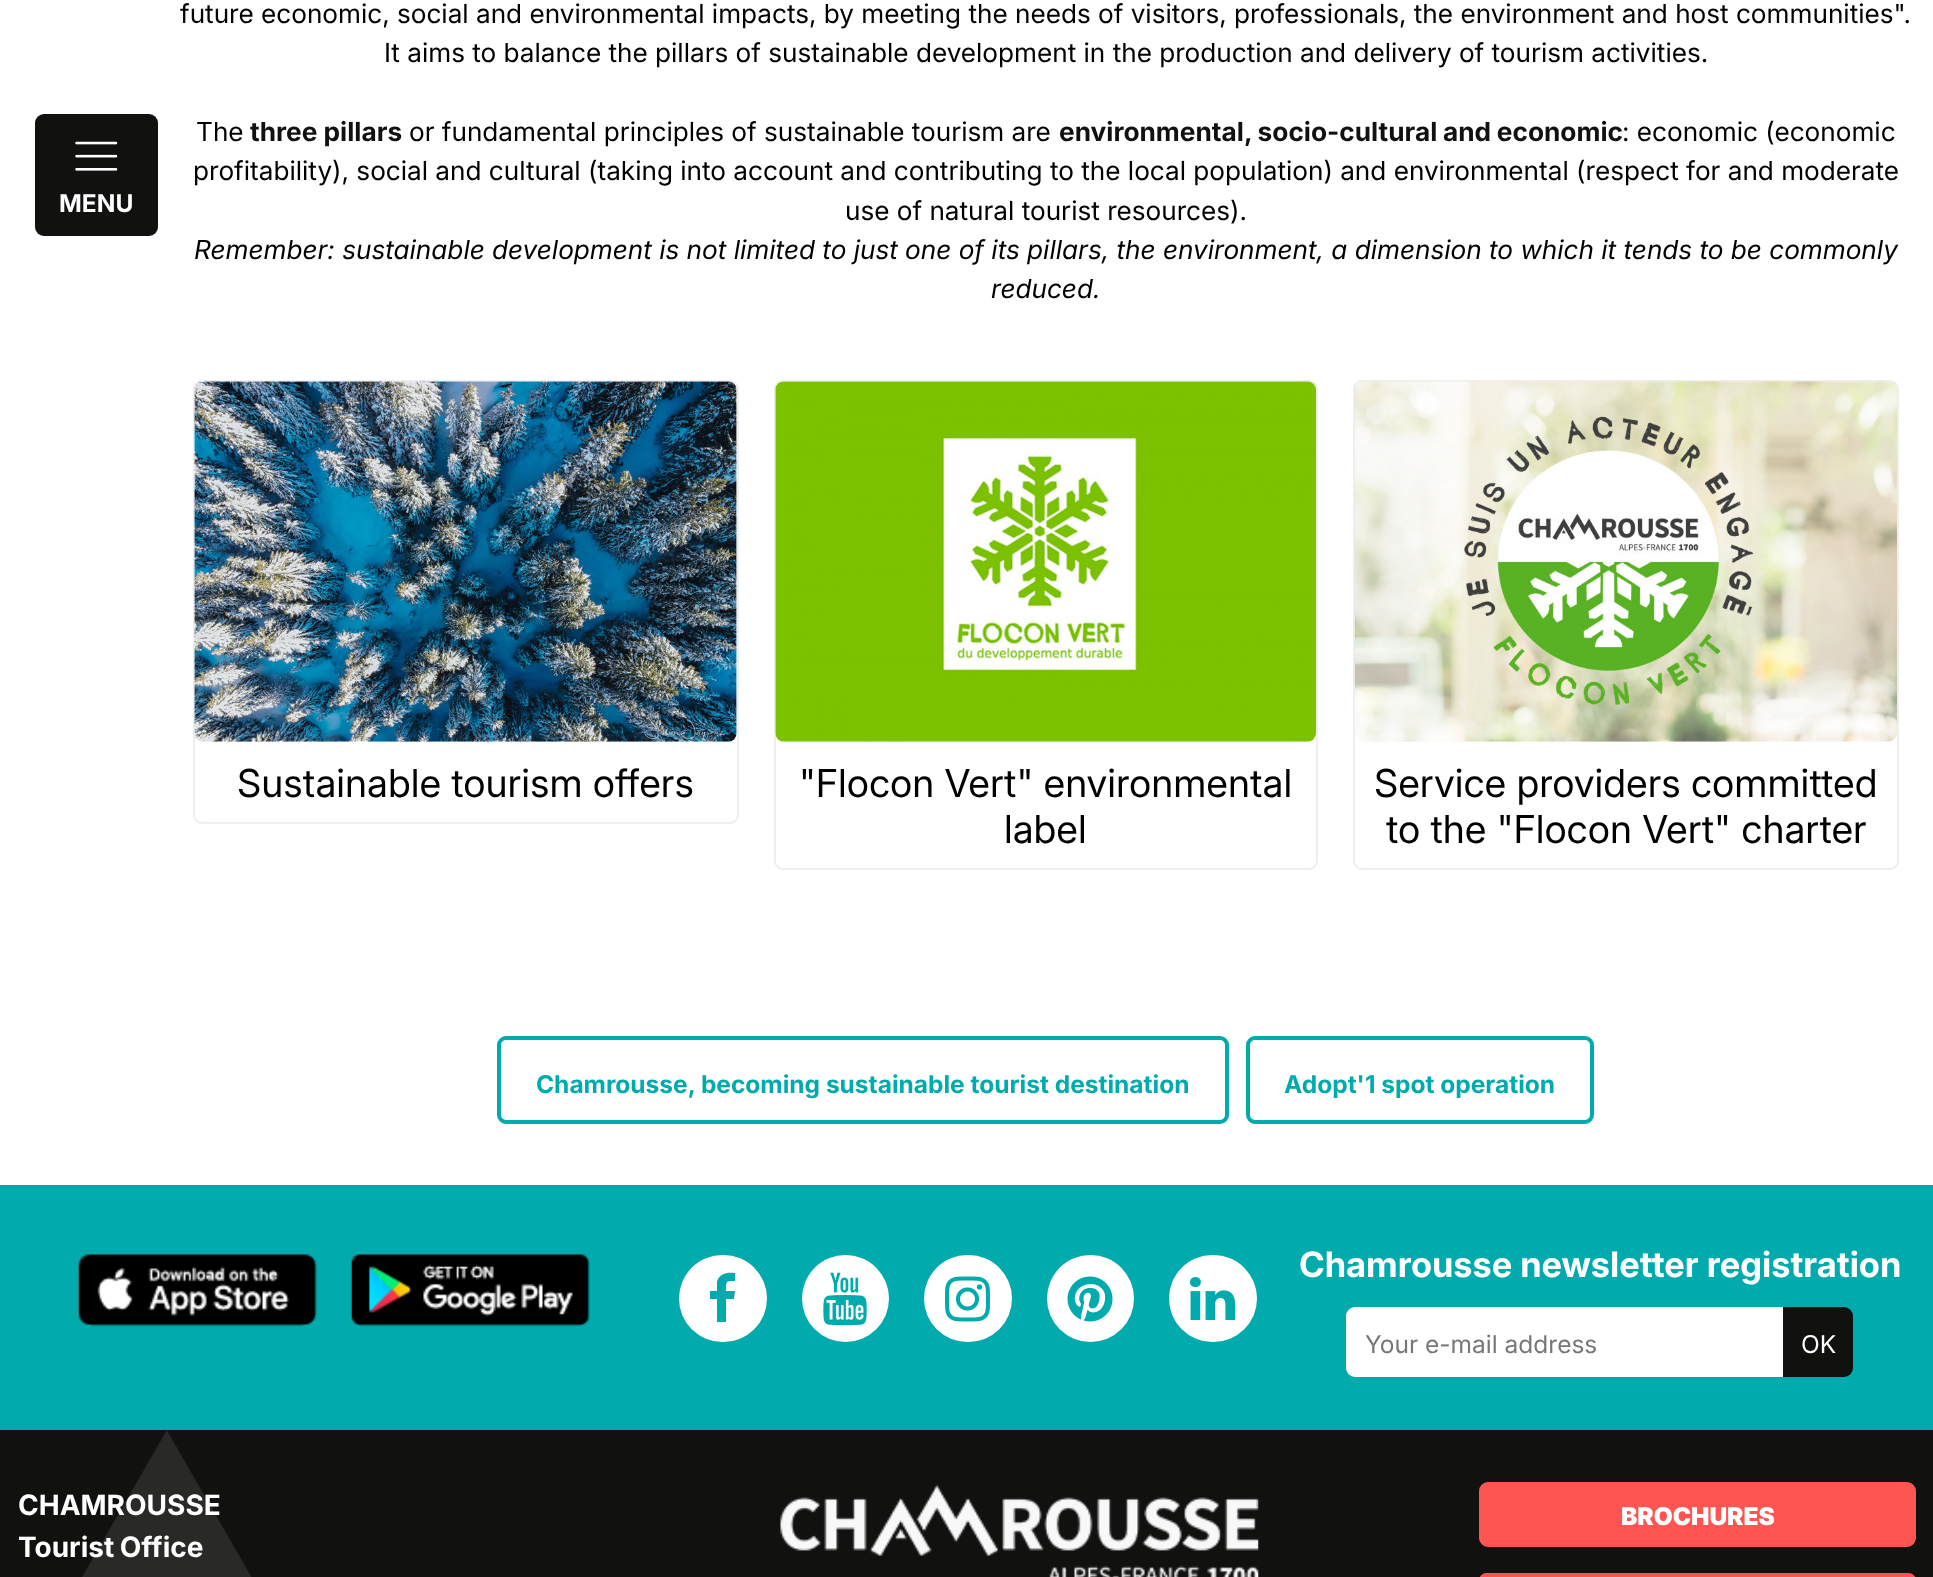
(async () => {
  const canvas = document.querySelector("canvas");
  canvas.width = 1933;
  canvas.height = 1577;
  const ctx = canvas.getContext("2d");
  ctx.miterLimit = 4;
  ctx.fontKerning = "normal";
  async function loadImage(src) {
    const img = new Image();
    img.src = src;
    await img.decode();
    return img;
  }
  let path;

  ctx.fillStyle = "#ffffff";
  ctx.fillRect(0, 0, 1933, 1577);
  ctx.fillStyle = "#111210";
  ctx.beginPath();
  ctx.roundRect(35, 114, 123, 122, 9);
  ctx.fill();
  ctx.drawImage(await loadImage("img/1.png"), 75, 141, 43, 30);
  ctx.beginPath();
  ctx.roundRect(194, 381, 544, 442, 8);
  ctx.strokeStyle = "#eeeeee";
  ctx.lineWidth = 2;
  ctx.stroke();
  ctx.drawImage(await loadImage("img/2.png"), 194, 381, 543, 361);
  ctx.beginPath();
  ctx.roundRect(775, 381, 542, 488, 8);
  ctx.stroke();
  ctx.drawImage(await loadImage("img/3.png"), 775, 381, 541, 361);
  ctx.beginPath();
  ctx.roundRect(1354, 381, 544, 488, 8);
  ctx.stroke();
  ctx.drawImage(await loadImage("img/4.png"), 1354, 381, 543, 361);
  ctx.beginPath();
  ctx.roundRect(499, 1038, 728, 84, 7);
  ctx.strokeStyle = "#00aaad";
  ctx.lineWidth = 4;
  ctx.stroke();
  ctx.beginPath();
  ctx.roundRect(1248, 1038, 344, 84, 7);
  ctx.stroke();
  ctx.fillStyle = "#00aaad";
  ctx.fillRect(0, 1185, 1933, 245);
  ctx.drawImage(await loadImage("img/5.png"), 78, 1254, 239, 73);
  ctx.drawImage(await loadImage("img/6.png"), 351, 1254, 239, 73);
  ctx.fillStyle = "#ffffff";
  ctx.beginPath();
  ctx.roundRect(679, 1255, 88, 87, 43.5);
  ctx.fill();
  ctx.fillStyle = "#00aaad";
  path = new Path2D("M735 1273V1281C726 1281 726 1281 726 1291H735L734 1299H726V1322H717V1299H710V1291H717V1282C719 1273 728 1272 735 1273Z");
  ctx.fill(path);
  ctx.fillStyle = "#ffffff";
  ctx.beginPath();
  ctx.arc(845.5, 1298.5, 43.5, 0, Math.PI * 2);
  ctx.fill();
  ctx.drawImage(await loadImage("img/7.png"), 823, 1272, 44, 54);
  ctx.beginPath();
  ctx.roundRect(924, 1255, 88, 87, 43.5);
  ctx.fill();
  ctx.drawImage(await loadImage("img/8.png"), 945, 1276, 45, 46);
  ctx.beginPath();
  ctx.arc(1090.5, 1298.5, 43.5, 0, Math.PI * 2);
  ctx.fill();
  ctx.drawImage(await loadImage("img/9.png"), 1067, 1276, 46, 46);
  ctx.beginPath();
  ctx.roundRect(1169, 1255, 88, 87, 43.5);
  ctx.fill();
  ctx.drawImage(await loadImage("img/10.png"), 1190, 1277, 45, 44);
  ctx.beginPath();
  ctx.roundRect(1347, 1308, 435, 68, [8, 0, 0, 8]);
  ctx.fill();
  ctx.strokeStyle = "#ffffff";
  ctx.lineWidth = 2;
  ctx.stroke();
  ctx.fillStyle = "#111210";
  ctx.beginPath();
  ctx.roundRect(1783, 1307, 70, 70, [0, 9, 9, 0]);
  ctx.fill();
  ctx.fillRect(0, 1430, 1933, 147);
  ctx.drawImage(await loadImage("img/11.png"), 82, 1430, 170, 147);
  ctx.drawImage(await loadImage("img/12.png"), 780, 1485, 479, 92);
  ctx.fillStyle = "#ff5552";
  ctx.beginPath();
  ctx.roundRect(1480, 1483, 435, 63, 8);
  ctx.fill();
  ctx.strokeStyle = "#ff5552";
  ctx.stroke();
  ctx.beginPath();
  ctx.roundRect(1480, 1574, 435, 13, 8);
  ctx.fill();
  ctx.stroke();
  ctx.font = "bold 24.5px 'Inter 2'";
  ctx.fillStyle = "#ffffff";
  ctx.fillText("MENU", 59, 212);
  ctx.font = "26.25px 'Inter 2'";
  ctx.fillStyle = "#000000";
  for (const [text, x, y] of [
    ["future economic, social and environmental impacts, by meeting the needs of visitors, professionals, the environment and host communities\".", 180, 23],
    ["It aims to balance the pillars of sustainable development in the production and delivery of tourism activities.", 384, 62],
    ["The", 196, 141],
  ]) {
    ctx.fillText(text, x, y);
  }
  ctx.font = "bold 26.25px 'Inter 2'";
  ctx.fillStyle = "#111210";
  ctx.fillText("three pillars", 250, 141);
  ctx.font = "26.25px 'Inter 2'";
  ctx.fillStyle = "#000000";
  ctx.fillText("or fundamental principles of sustainable tourism are", 409, 141);
  ctx.wordSpacing = "-0.5px";
  ctx.font = "bold 26.25px 'Inter 2'";
  ctx.fillStyle = "#111210";
  ctx.fillText("environmental, socio-cultural and economic", 1059, 141);
  ctx.wordSpacing = "0px";
  ctx.font = "26.25px 'Inter 2'";
  ctx.fillStyle = "#000000";
  for (const [text, x, y] of [
    [": economic (economic", 1622, 141],
    ["profitability), social and cultural (taking into account and contributing to the local population) and environmental (respect for and moderate", 193, 180],
    ["use of natural tourist resources).", 845, 220],
  ]) {
    ctx.fillText(text, x, y);
  }
  ctx.font = "italic 26.25px Inter";
  ctx.fillText("Remember: sustainable development is not limited to just one of its pillars, the environment, a dimension to which it tends to be commonly", 194, 259);
  ctx.fillText("reduced.", 991, 298);
  ctx.font = "38.5px 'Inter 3'";
  for (const [text, x, y] of [
    ["Sustainable tourism offers", 237, 797],
    ["\"Flocon Vert\" environmental", 799, 797],
    ["label", 1004, 843],
    ["Service providers committed", 1374, 797],
    ["to the \"Flocon Vert\" charter", 1386, 843],
  ]) {
    ctx.fillText(text, x, y);
  }
  ctx.font = "bold 24.5px 'Inter 2'";
  ctx.fillStyle = "#00aaad";
  ctx.fillText("Chamrousse, becoming sustainable tourist destination", 536, 1093);
  ctx.fillText("Adopt'1 spot operation", 1284, 1093);
  ctx.font = "bold 35px Inter";
  ctx.fillStyle = "#ffffff";
  ctx.fillText("Chamrousse newsletter registration", 1299, 1277);
  ctx.font = "24.5px Inter";
  ctx.fillStyle = "#777777";
  ctx.fillText("Your e-mail address", 1365, 1353);
  ctx.fillStyle = "#ffffff";
  ctx.fillText("OK", 1801, 1353);
  ctx.font = "bold 28px 'Inter 2'";
  ctx.fillText("CHAMROUSSE", 18, 1515);
  ctx.wordSpacing = "-1px";
  ctx.fillText("Tourist Office", 18, 1557);
  ctx.wordSpacing = "0px";
  ctx.font = "900 24.5px Inter";
  ctx.fillText("BROCHURES", 1621, 1525);
})();
